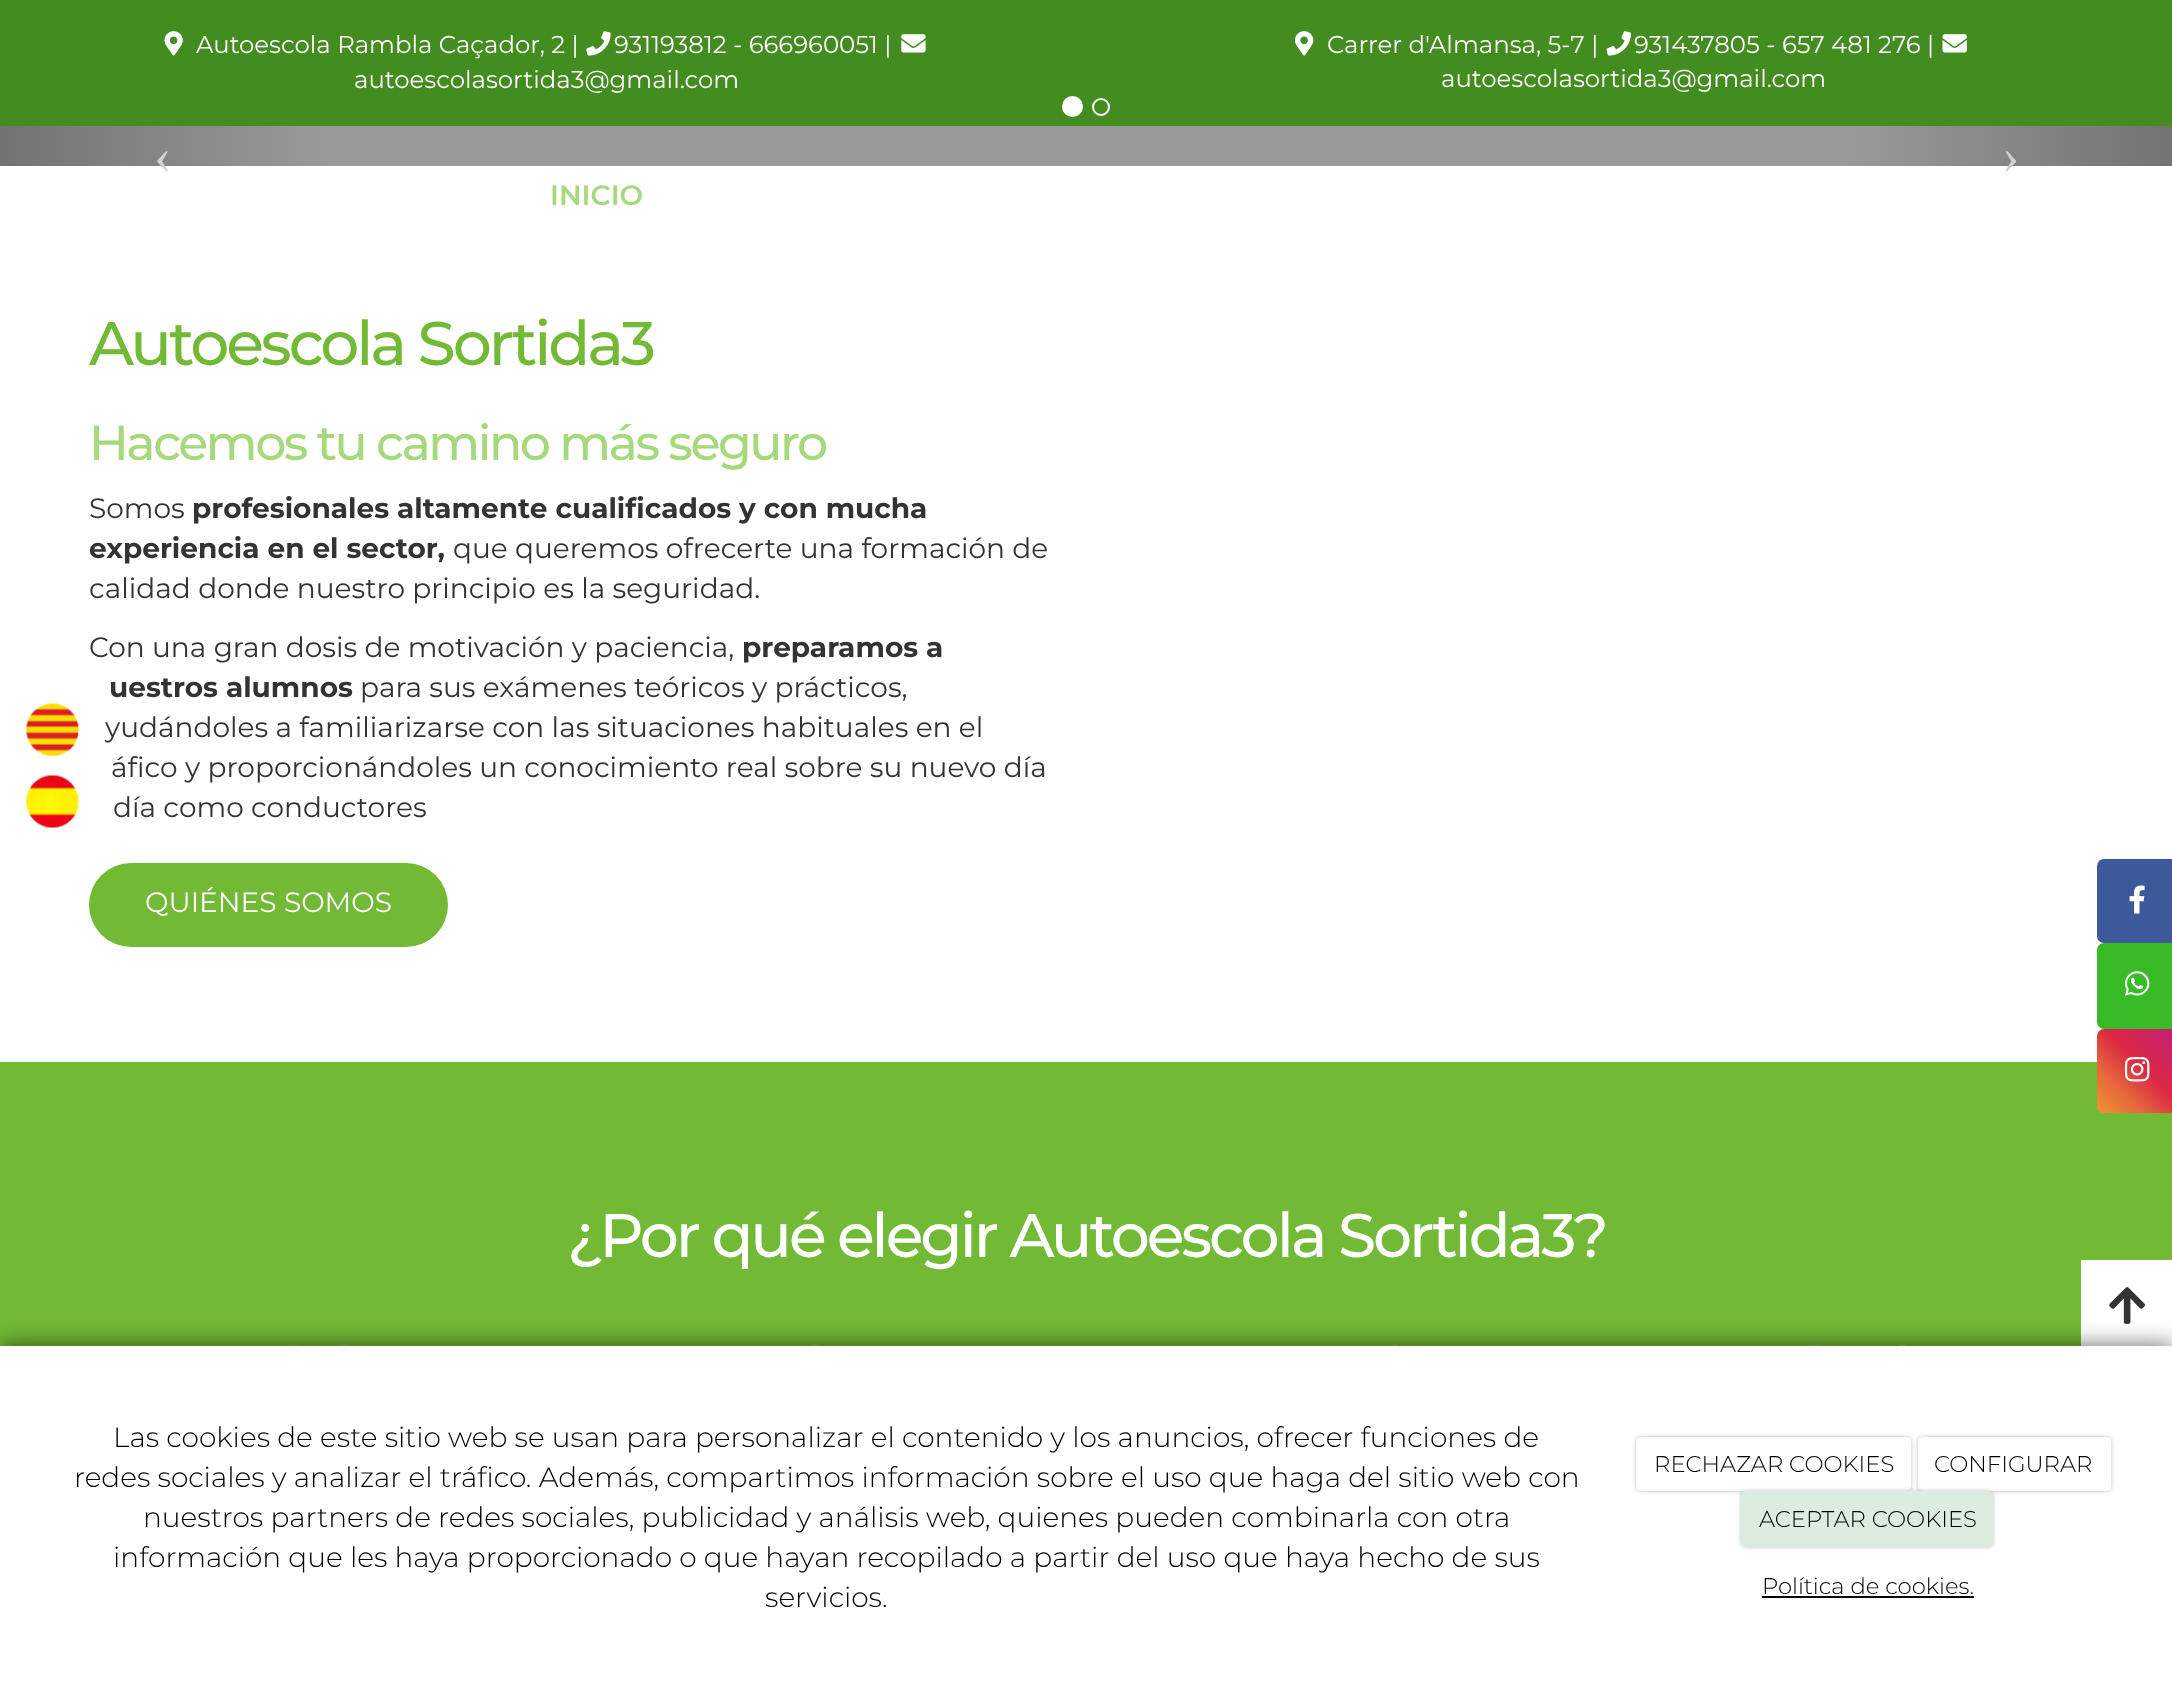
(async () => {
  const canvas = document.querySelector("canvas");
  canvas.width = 2172;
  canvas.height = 1691;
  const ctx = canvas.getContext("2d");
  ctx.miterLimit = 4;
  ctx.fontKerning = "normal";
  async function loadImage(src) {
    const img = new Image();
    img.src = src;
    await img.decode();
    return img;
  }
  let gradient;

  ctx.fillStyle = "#ffffff";
  ctx.fillRect(0, 0, 2172, 1691);
  ctx.fillStyle = "#428c20";
  ctx.fillRect(0, 0, 2172, 126);
  ctx.drawImage(await loadImage("img/1.png"), 164, 31, 19, 25);
  ctx.drawImage(await loadImage("img/2.png"), 586, 31, 25, 25);
  ctx.drawImage(await loadImage("img/3.png"), 901, 34, 25, 19);
  ctx.drawImage(await loadImage("img/4.png"), 1295, 31, 19, 25);
  ctx.drawImage(await loadImage("img/5.png"), 1606, 31, 25, 25);
  ctx.drawImage(await loadImage("img/6.png"), 1942, 34, 25, 19);
  ctx.fillStyle = "#ffffff";
  ctx.beginPath();
  ctx.arc(1072.5, 106.5, 9.5, 0, Math.PI * 2);
  ctx.fill();
  ctx.strokeStyle = "#ffffff";
  ctx.lineWidth = 2;
  ctx.stroke();
  ctx.beginPath();
  ctx.arc(1101, 107, 8, 0, Math.PI * 2);
  ctx.stroke();
  gradient = ctx.createLinearGradient(0, 146, 326, 146);
  gradient.addColorStop(0, "#737373");
  gradient.addColorStop(1, "#999999");
  ctx.fillStyle = gradient;
  ctx.fillRect(0, 126, 326, 40);
  ctx.fillStyle = "#999999";
  ctx.fillRect(326, 126, 1522, 40);
  gradient = ctx.createLinearGradient(1848, 146, 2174, 146);
  gradient.addColorStop(0, "#999999");
  gradient.addColorStop(1, "#737373");
  ctx.fillStyle = gradient;
  ctx.fillRect(1848, 126, 324, 40);
  ctx.fillStyle = "#72b935";
  ctx.beginPath();
  ctx.roundRect(89, 863, 359, 84, 42);
  ctx.fill();
  ctx.fillRect(0, 1062, 2172, 284);
  ctx.drawImage(await loadImage("img/7.png"), 288, 1345, 61, 1);
  ctx.drawImage(await loadImage("img/8.png"), 811, 1345, 9, 1);
  ctx.drawImage(await loadImage("img/9.png"), 1392, 1345, 5, 1);
  ctx.drawImage(await loadImage("img/10.png"), 1806, 1345, 100, 1);
  ctx.drawImage(await loadImage("img/11.png"), 26, 703, 54, 54);
  ctx.drawImage(await loadImage("img/12.png"), 26, 774, 54, 55);
  ctx.fillStyle = "#3c5a9a";
  ctx.beginPath();
  ctx.roundRect(2097, 859, 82, 84, 7);
  ctx.fill();
  ctx.drawImage(await loadImage("img/13.png"), 2129, 885, 16, 29);
  ctx.fillStyle = "#39bb27";
  ctx.beginPath();
  ctx.roundRect(2097, 943, 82, 86, 7);
  ctx.fill();
  ctx.drawImage(await loadImage("img/14.png"), 2124, 971, 26, 25);
  gradient = ctx.createLinearGradient(2101, 1117, 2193, 1025);
  gradient.addColorStop(0, "#f09433");
  gradient.addColorStop(0.25, "#e6683c");
  gradient.addColorStop(0.5, "#dc2743");
  gradient.addColorStop(0.75, "#cc2366");
  gradient.addColorStop(1, "#bc1888");
  ctx.fillStyle = gradient;
  ctx.beginPath();
  ctx.roundRect(2097, 1029, 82, 84, 7);
  ctx.fill();
  ctx.drawImage(await loadImage("img/15.png"), 2124, 1057, 26, 25);
  ctx.fillStyle = "#ffffff";
  ctx.fillRect(2081, 1260, 91, 86);
  ctx.drawImage(await loadImage("img/16.png"), 2109, 1287, 36, 37);
  ctx.fillStyle = "rgba(0, 0, 0, 0.6)";
  ctx.filter = "blur(11.5px)";
  ctx.beginPath();
  ctx.rect(0, 1346, 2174, 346);
  ctx.fill();
  ctx.filter = "none";
  ctx.fillStyle = "#ffffff";
  ctx.fillRect(0, 1346, 2172, 345);
  ctx.fillStyle = "rgba(0, 0, 0, 0.25)";
  ctx.filter = "blur(2px)";
  ctx.beginPath();
  ctx.roundRect(1636, 1437, 275, 54, 5);
  ctx.fill();
  ctx.filter = "none";
  ctx.fillStyle = "#ffffff";
  ctx.beginPath();
  ctx.roundRect(1636, 1437, 275, 54, 5);
  ctx.fill();
  ctx.fillStyle = "rgba(0, 0, 0, 0.25)";
  ctx.filter = "blur(2px)";
  ctx.beginPath();
  ctx.roundRect(1918, 1437, 193, 54, 5);
  ctx.fill();
  ctx.filter = "none";
  ctx.fillStyle = "#ffffff";
  ctx.beginPath();
  ctx.roundRect(1918, 1437, 193, 54, 5);
  ctx.fill();
  ctx.fillStyle = "rgba(0, 0, 0, 0.25)";
  ctx.filter = "blur(2px)";
  ctx.beginPath();
  ctx.roundRect(1741, 1491, 252, 56, 5);
  ctx.fill();
  ctx.filter = "none";
  ctx.fillStyle = "#dcecdf";
  ctx.beginPath();
  ctx.roundRect(1741, 1491, 252, 56, 5);
  ctx.fill();
  ctx.fillStyle = "#000000";
  ctx.fillRect(1762, 1596, 212, 2);
  ctx.font = "24.4px Montserrat";
  ctx.fillStyle = "#ffffff";
  for (const [text, x, y] of [
    ["Autoescola Rambla Caçador, 2 |", 196, 53],
    ["931193812 - 666960051 |", 614, 53],
    ["autoescolasortida3@gmail.com", 354, 88],
    ["Carrer d'Almansa, 5-7 |", 1327, 53],
    ["931437805 - 657 481 276 |", 1634, 53],
    ["autoescolasortida3@gmail.com", 1441, 87],
  ]) {
    ctx.fillText(text, x, y);
  }
  ctx.font = "52px Liberation Serif";
  ctx.fillStyle = "#d0d0d0";
  ctx.fillText("‹", 154, 173);
  ctx.fillText("›", 2002, 173);
  ctx.font = "600 28px Montserrat";
  ctx.fillStyle = "#a6d97b";
  ctx.fillText("INICIO", 550, 205);
  ctx.letterSpacing = "-3.1px";
  ctx.font = "500 61.6px Montserrat";
  ctx.fillStyle = "#72b935";
  ctx.fillText("Autoescola Sortida3", 89, 365);
  ctx.letterSpacing = "-2.45px";
  ctx.font = "500 49px Montserrat";
  ctx.fillStyle = "#a6d97b";
  ctx.fillText("Hacemos tu camino más seguro", 89, 460);
  ctx.letterSpacing = "0px";
  ctx.font = "28px Montserrat";
  ctx.fillStyle = "#333333";
  ctx.fillText("Somos", 89, 518);
  ctx.font = "bold 28px Montserrat";
  ctx.fillText("profesionales altamente cualificados y con mucha", 192, 518);
  ctx.fillText("experiencia en el sector,", 89, 558);
  ctx.font = "28px Montserrat";
  for (const [text, x, y] of [
    ["que queremos ofrecerte una formación de", 453, 558],
    ["calidad donde nuestro principio es la seguridad.", 89, 598],
    ["Con una gran dosis de motivación y paciencia,", 89, 657],
  ]) {
    ctx.fillText(text, x, y);
  }
  ctx.font = "bold 28px Montserrat";
  ctx.fillText("preparamos a", 742, 657);
  ctx.fillText("uestros alumnos", 109, 697);
  ctx.font = "28px Montserrat";
  for (const [text, x, y] of [
    ["para sus exámenes teóricos y prácticos,", 360, 697],
    ["yudándoles a familiarizarse con las situaciones habituales en el", 105, 737],
    ["áfico y proporcionándoles un conocimiento real sobre su nuevo día", 111, 777],
    ["día como conductores", 113, 817],
  ]) {
    ctx.fillText(text, x, y);
  }
  ctx.fillStyle = "#ffffff";
  ctx.fillText("QUIÉNES SOMOS", 145, 912);
  ctx.letterSpacing = "-3.1px";
  ctx.font = "500 61.6px Montserrat";
  ctx.fillText("¿Por qué elegir Autoescola Sortida3?", 567, 1257);
  ctx.fillStyle = "rgba(255, 255, 255, 0.79)";
  ctx.fillRect(104, 740, 1, 2);
  ctx.letterSpacing = "0px";
  ctx.font = "300 28px Montserrat";
  ctx.fillStyle = "#000000";
  for (const [text, x, y] of [
    ["Las cookies de este sitio web se usan para personalizar el contenido y los anuncios, ofrecer funciones de", 113, 1447],
    ["redes sociales y analizar el tráfico. Además, compartimos información sobre el uso que haga del sitio web con", 74, 1487],
    ["nuestros partners de redes sociales, publicidad y análisis web, quienes pueden combinarla con otra", 143, 1527],
    ["información que les haya proporcionado o que hayan recopilado a partir del uso que haya hecho de sus", 113, 1567],
    ["servicios.", 765, 1607],
  ]) {
    ctx.fillText(text, x, y);
  }
  ctx.font = "300 22.75px Montserrat";
  for (const [text, x, y] of [
    ["RECHAZAR COOKIES", 1654, 1472],
    ["CONFIGURAR", 1934, 1472],
    ["ACEPTAR COOKIES", 1759, 1527],
    ["Política de cookies.", 1762, 1594],
  ]) {
    ctx.fillText(text, x, y);
  }
})();
